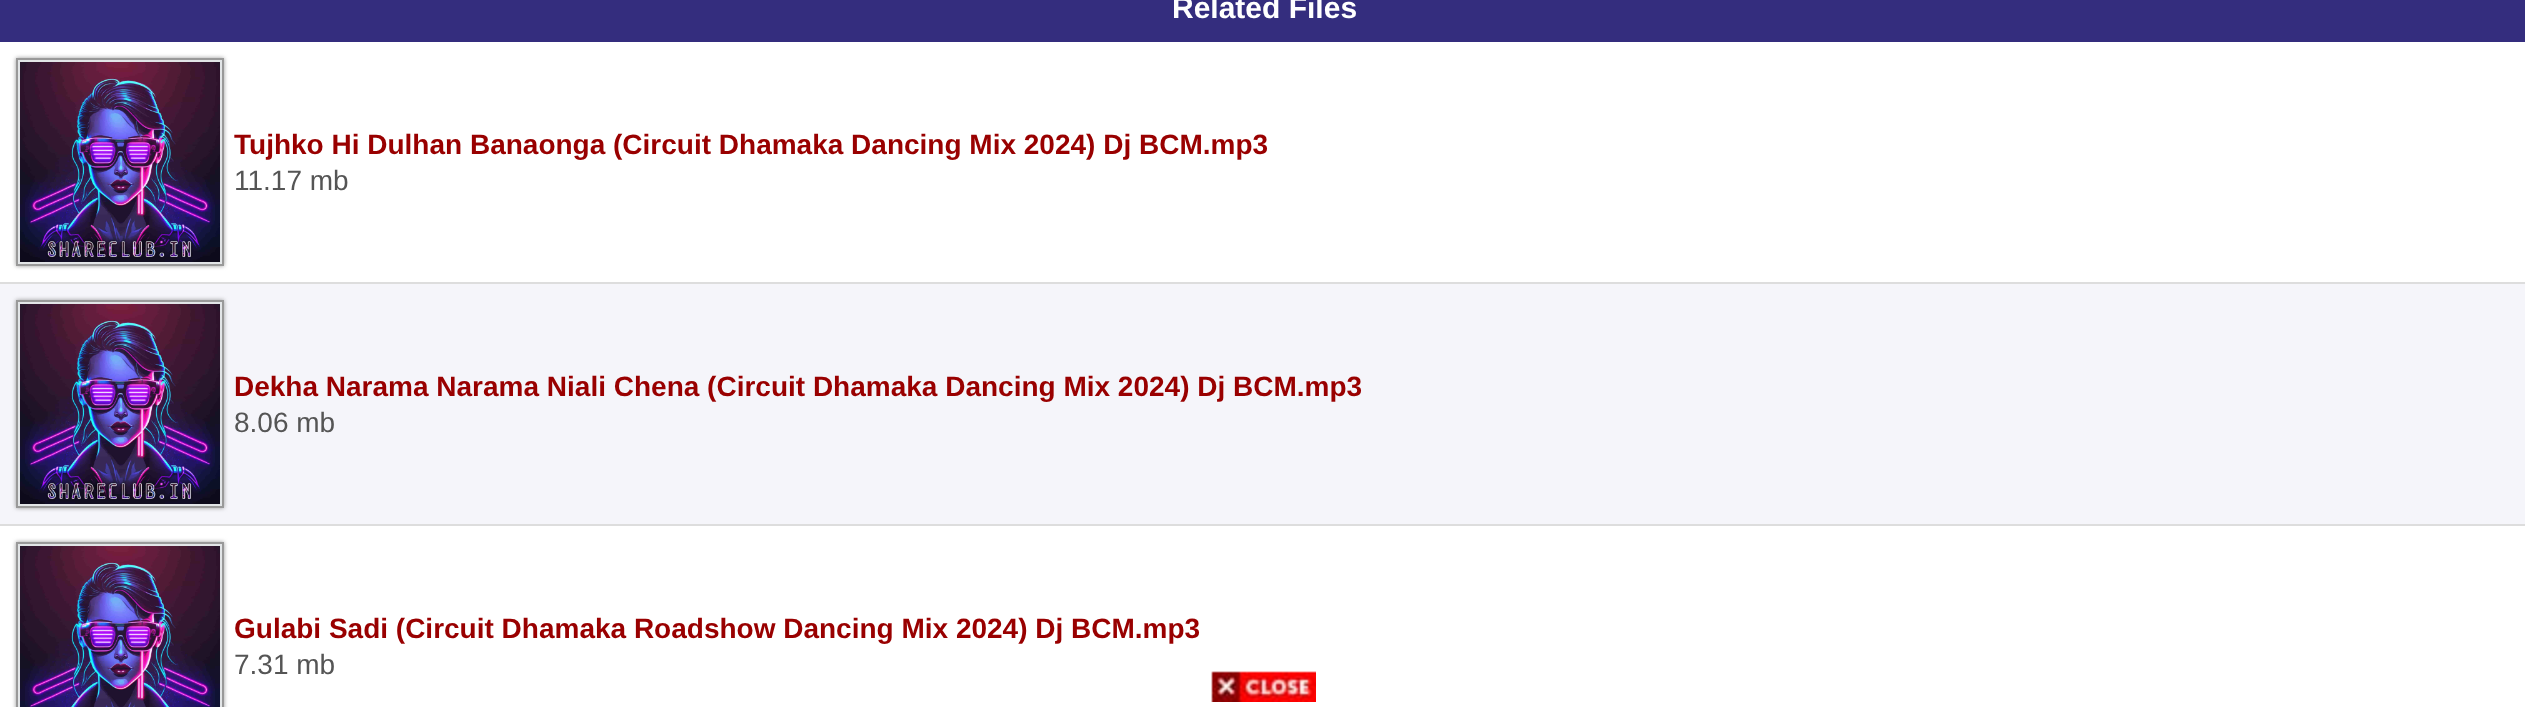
(async () => {
  const canvas = document.querySelector("canvas");
  canvas.width = 2525;
  canvas.height = 707;
  const ctx = canvas.getContext("2d");
  ctx.miterLimit = 4;
  ctx.fontKerning = "normal";
  async function loadImage(src) {
    const img = new Image();
    img.src = src;
    await img.decode();
    return img;
  }

  ctx.fillStyle = "#ffffff";
  ctx.fillRect(0, 0, 2525, 707);
  ctx.fillStyle = "#342d7e";
  ctx.fillRect(0, 0, 2525, 42);
  ctx.fillStyle = "#dddddd";
  ctx.fillRect(0, 282, 2525, 2);
  ctx.fillStyle = "#999999";
  ctx.filter = "blur(2px)";
  ctx.beginPath();
  ctx.rect(16, 58, 208, 208);
  ctx.fill();
  ctx.filter = "none";
  ctx.fillStyle = "#e2e5e7";
  ctx.beginPath();
  ctx.rect(17, 59, 206, 206);
  ctx.fill();
  ctx.strokeStyle = "#999999";
  ctx.lineWidth = 2;
  ctx.stroke();
  ctx.drawImage(await loadImage("img/1.png"), 20, 62, 200, 200);
  ctx.fillStyle = "#f5f5fa";
  ctx.fillRect(0, 284, 2525, 240);
  ctx.fillStyle = "#dddddd";
  ctx.fillRect(0, 524, 2525, 2);
  ctx.fillStyle = "#999999";
  ctx.filter = "blur(2px)";
  ctx.beginPath();
  ctx.rect(16, 300, 208, 208);
  ctx.fill();
  ctx.filter = "none";
  ctx.fillStyle = "#e2e5e7";
  ctx.beginPath();
  ctx.rect(17, 301, 206, 206);
  ctx.fill();
  ctx.stroke();
  ctx.drawImage(await loadImage("img/2.png"), 20, 304, 200, 200);
  ctx.fillStyle = "#999999";
  ctx.filter = "blur(2px)";
  ctx.beginPath();
  ctx.rect(16, 542, 208, 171);
  ctx.fill();
  ctx.filter = "none";
  ctx.fillStyle = "#e2e5e7";
  ctx.beginPath();
  ctx.rect(17, 543, 206, 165);
  ctx.fill();
  ctx.stroke();
  ctx.drawImage(await loadImage("img/3.png"), 20, 546, 200, 161);
  ctx.drawImage(await loadImage("img/4.png"), 1211, 671, 105, 31);
  ctx.font = "bold 30px Liberation Sans";
  ctx.fillStyle = "#ffffff";
  ctx.fillText("Related Files", 1172, 18);
  ctx.font = "bold 28px Liberation Sans";
  ctx.fillStyle = "#990000";
  ctx.fillText("Tujhko Hi Dulhan Banaonga (Circuit Dhamaka Dancing Mix 2024) Dj BCM.mp3", 234, 154);
  ctx.font = "28px Liberation Sans";
  ctx.fillStyle = "#555555";
  ctx.fillText("11.17 mb", 234, 190);
  ctx.font = "bold 28px Liberation Sans";
  ctx.fillStyle = "#990000";
  ctx.fillText("Dekha Narama Narama Niali Chena (Circuit Dhamaka Dancing Mix 2024) Dj BCM.mp3", 234, 396);
  ctx.font = "28px Liberation Sans";
  ctx.fillStyle = "#555555";
  ctx.fillText("8.06 mb", 234, 432);
  ctx.font = "bold 28px Liberation Sans";
  ctx.fillStyle = "#990000";
  ctx.fillText("Gulabi Sadi (Circuit Dhamaka Roadshow Dancing Mix 2024) Dj BCM.mp3", 234, 638);
  ctx.font = "28px Liberation Sans";
  ctx.fillStyle = "#555555";
  ctx.fillText("7.31 mb", 234, 674);
})();
